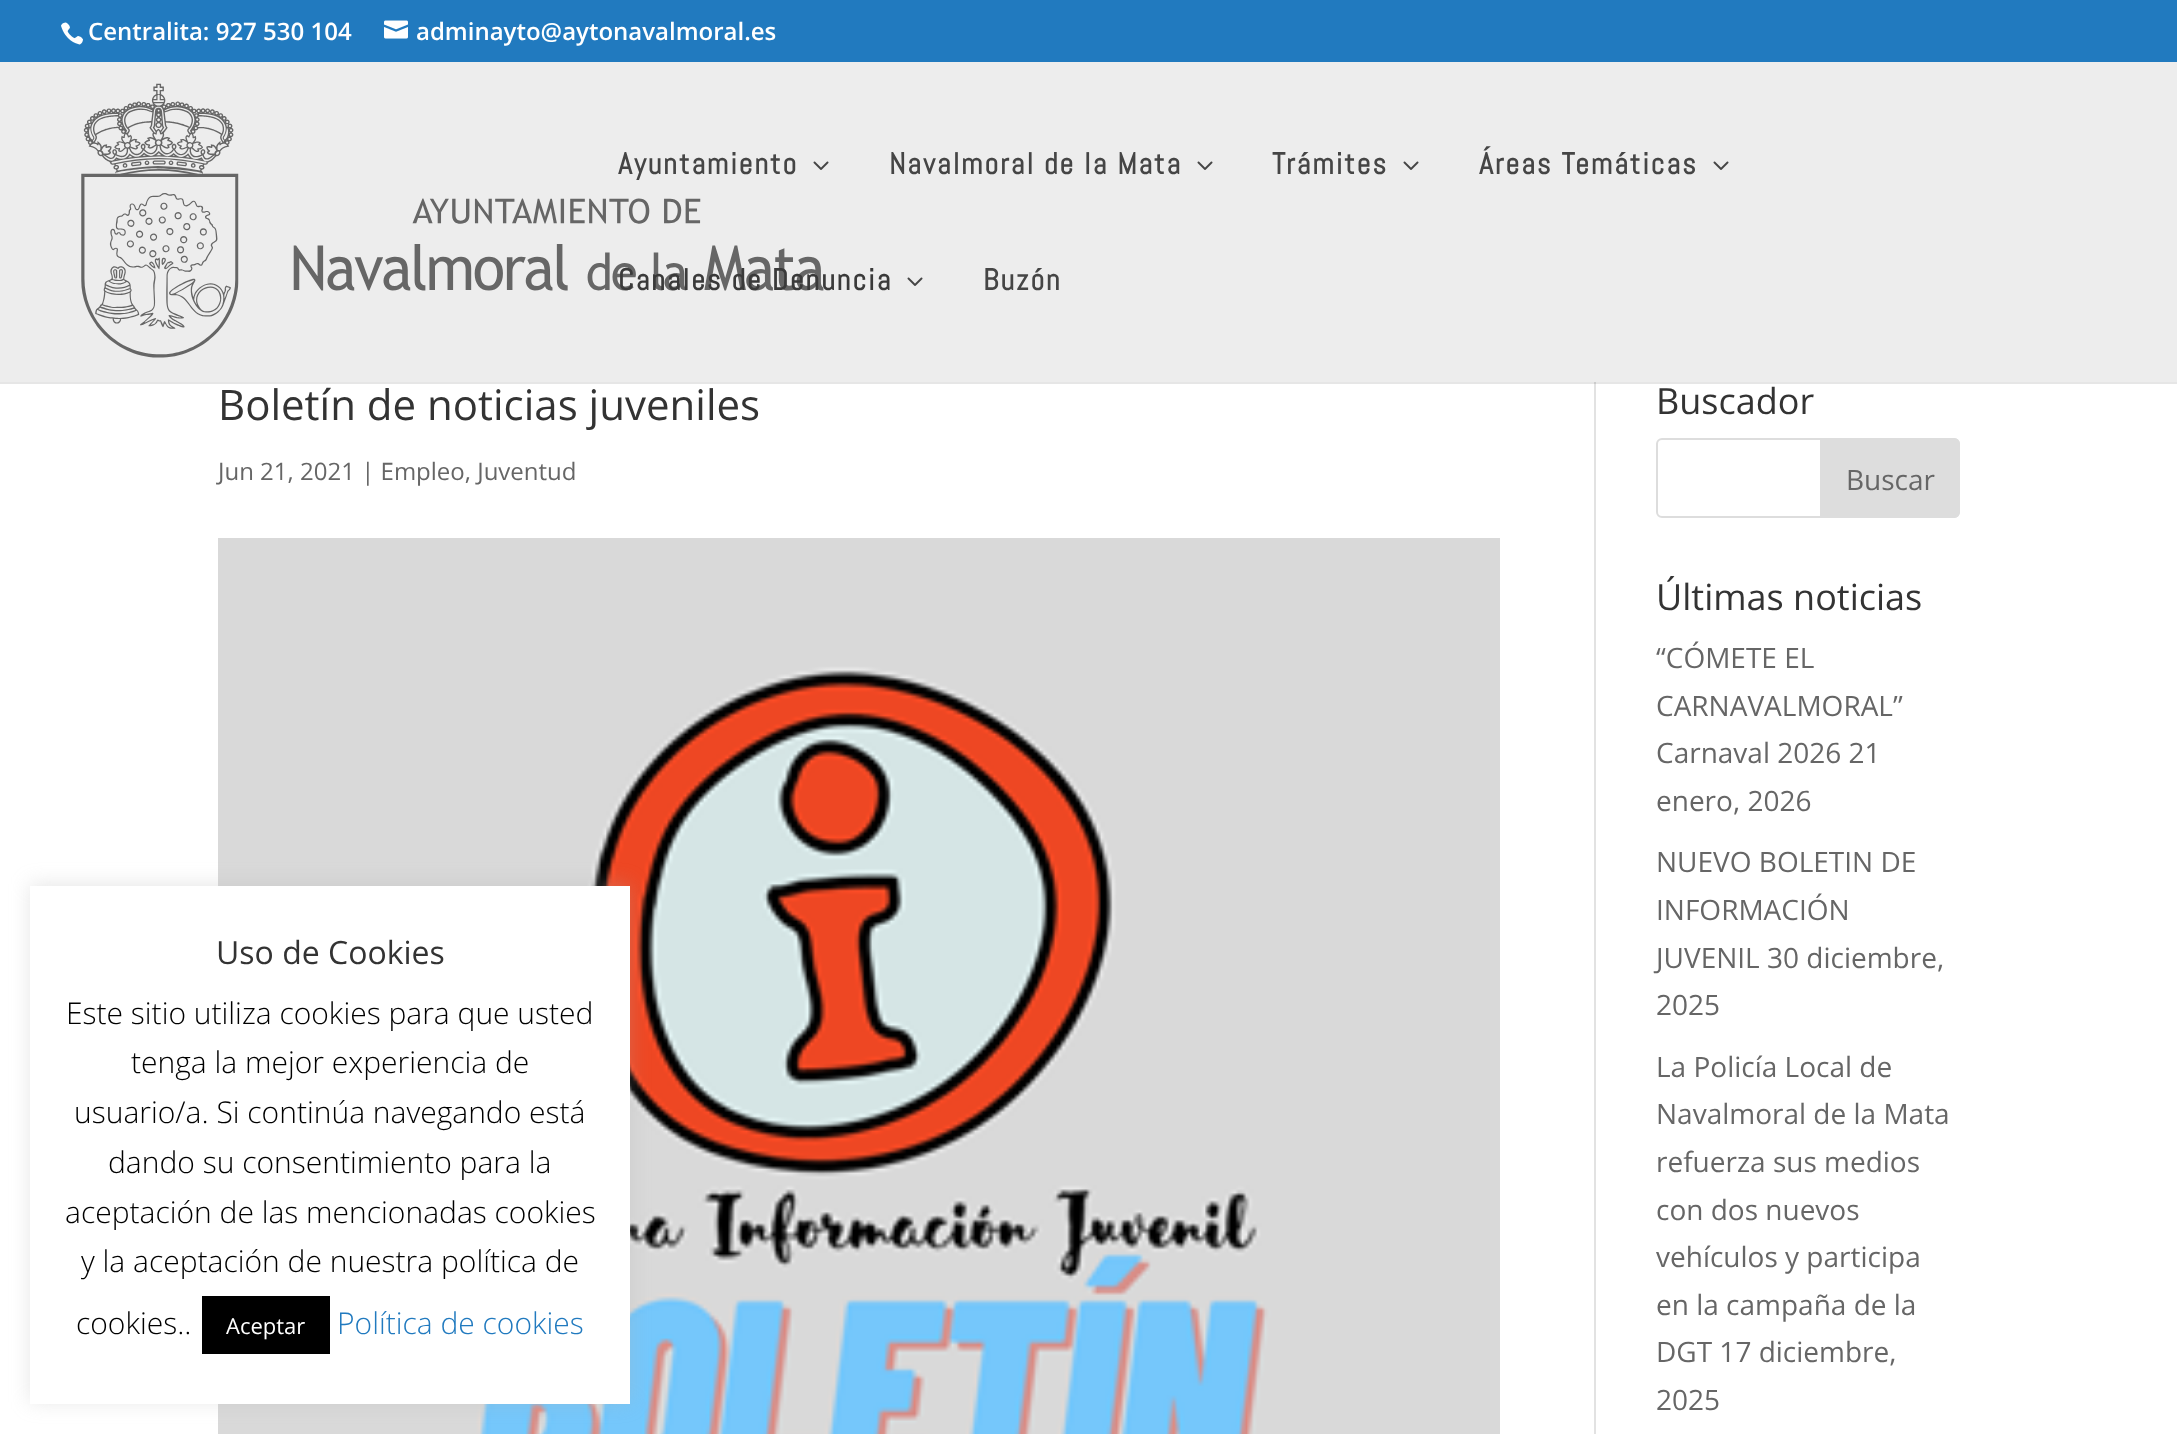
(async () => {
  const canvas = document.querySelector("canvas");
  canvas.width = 2177;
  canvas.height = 1434;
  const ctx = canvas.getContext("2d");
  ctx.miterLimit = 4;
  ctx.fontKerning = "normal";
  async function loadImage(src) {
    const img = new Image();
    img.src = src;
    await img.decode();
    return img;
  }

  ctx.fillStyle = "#ffffff";
  ctx.fillRect(0, 0, 2177, 1434);
  ctx.fillStyle = "#e6e6e6";
  ctx.fillRect(0, 382, 2177, 2);
  ctx.fillStyle = "#217abf";
  ctx.fillRect(0, 0, 2177, 62);
  ctx.drawImage(await loadImage("img/1.png"), 61, 22, 22, 23);
  ctx.drawImage(await loadImage("img/2.png"), 384, 20, 24, 19);
  ctx.fillStyle = "#ededed";
  ctx.fillRect(0, 62, 2177, 320);
  ctx.drawImage(await loadImage("img/3.png"), 81, 83, 743, 275);
  ctx.drawImage(await loadImage("img/4.png"), 813, 161, 16, 9);
  ctx.drawImage(await loadImage("img/4.png"), 1197, 161, 16, 9);
  ctx.drawImage(await loadImage("img/4.png"), 1403, 161, 16, 9);
  ctx.drawImage(await loadImage("img/4.png"), 1713, 161, 16, 9);
  ctx.drawImage(await loadImage("img/4.png"), 907, 277, 16, 9);
  ctx.fillStyle = "#e2e2e2";
  ctx.fillRect(1594, 384, 2, 1050);
  ctx.fillStyle = "#cbcbcb";
  ctx.fillRect(1594, 382, 2, 2);
  ctx.drawImage(await loadImage("img/5.png"), 218, 538, 1282, 896);
  ctx.beginPath();
  ctx.roundRect(1657, 439, 302, 78, 5);
  ctx.strokeStyle = "#dddddd";
  ctx.lineWidth = 2;
  ctx.stroke();
  ctx.fillStyle = "#dddddd";
  ctx.beginPath();
  ctx.roundRect(1821, 439, 138, 78, [0, 5, 5, 0]);
  ctx.fill();
  ctx.stroke();
  ctx.fillStyle = "rgba(172, 171, 171, 0.3)";
  ctx.filter = "blur(10px)";
  ctx.beginPath();
  ctx.rect(30, 884, 600, 518);
  ctx.fill();
  ctx.filter = "none";
  ctx.fillStyle = "#ffffff";
  ctx.fillRect(30, 886, 600, 518);
  ctx.fillStyle = "#000000";
  ctx.fillRect(202, 1296, 128, 58);
  ctx.font = "600 24px Open Sans";
  ctx.fillStyle = "#ffffff";
  ctx.fillText("Centralita: 927 530 104", 88, 40);
  ctx.fillText("adminayto@aytonavalmoral.es", 416, 40);
  ctx.letterSpacing = "2px";
  ctx.font = "bold 30px Abel";
  ctx.fillStyle = "#454545";
  for (const [text, x, y] of [
    ["Ayuntamiento", 618, 174],
    ["Navalmoral de la Mata", 889, 174],
    ["Trámites", 1272, 174],
    ["Áreas Temáticas", 1479, 174],
  ]) {
    ctx.fillText(text, x, y);
  }
  ctx.fillStyle = "#3a3a3a";
  ctx.fillText("Canales de Denuncia", 618, 290);
  ctx.fillStyle = "#454545";
  ctx.fillText("Buzón", 983, 290);
  ctx.letterSpacing = "0px";
  ctx.font = "42px Open Sans";
  ctx.fillStyle = "#333333";
  ctx.fillText("Boletín de noticias juveniles", 218, 420);
  ctx.font = "24px Open Sans";
  ctx.fillStyle = "#666666";
  ctx.fillText("Jun 21, 2021 | Empleo, Juventud", 218, 480);
  ctx.font = "36px Open Sans";
  ctx.fillStyle = "#333333";
  ctx.fillText("Buscador", 1656, 414);
  ctx.font = "28px Open Sans";
  ctx.fillStyle = "#666666";
  ctx.fillText("Buscar", 1846, 490);
  ctx.font = "36px Open Sans";
  ctx.fillStyle = "#333333";
  ctx.fillText("Últimas noticias", 1656, 610);
  ctx.font = "28px Open Sans";
  ctx.fillStyle = "#666666";
  for (const [text, x, y] of [
    ["“CÓMETE EL", 1656, 668],
    ["CARNAVALMORAL”", 1656, 716],
    ["Carnaval 2026 21", 1656, 763],
    ["enero, 2026", 1656, 811],
    ["NUEVO BOLETIN DE", 1656, 872],
    ["INFORMACIÓN", 1656, 920],
    ["JUVENIL 30 diciembre,", 1656, 968],
    ["2025", 1656, 1015],
    ["La Policía Local de", 1656, 1077],
    ["Navalmoral de la Mata", 1656, 1124],
    ["refuerza sus medios", 1656, 1172],
    ["con dos nuevos", 1656, 1220],
    ["vehículos y participa", 1656, 1267],
    ["en la campaña de la", 1656, 1315],
    ["DGT 17 diciembre,", 1656, 1362],
    ["2025", 1656, 1410],
  ]) {
    ctx.fillText(text, x, y);
  }
  ctx.font = "32px Open Sans";
  ctx.fillStyle = "#333333";
  ctx.fillText("Uso de Cookies", 216, 964);
  ctx.font = "300 30px Open Sans";
  ctx.fillStyle = "#000000";
  for (const [text, x, y] of [
    ["Este sitio utiliza cookies para que usted", 66, 1024],
    ["tenga la mejor experiencia de", 131, 1073],
    ["usuario/a. Si continúa navegando está", 74, 1123],
    ["dando su consentimiento para la", 108, 1173],
    ["aceptación de las mencionadas cookies", 65, 1223],
    ["y la aceptación de nuestra política de", 81, 1272],
    ["cookies..", 76, 1334],
  ]) {
    ctx.fillText(text, x, y);
  }
  ctx.font = "22px Open Sans";
  ctx.fillStyle = "#ffffff";
  ctx.fillText("Aceptar", 226, 1334);
  ctx.font = "300 30px Open Sans";
  ctx.fillStyle = "#217abf";
  ctx.fillText("Política de cookies", 337, 1334);
})();
